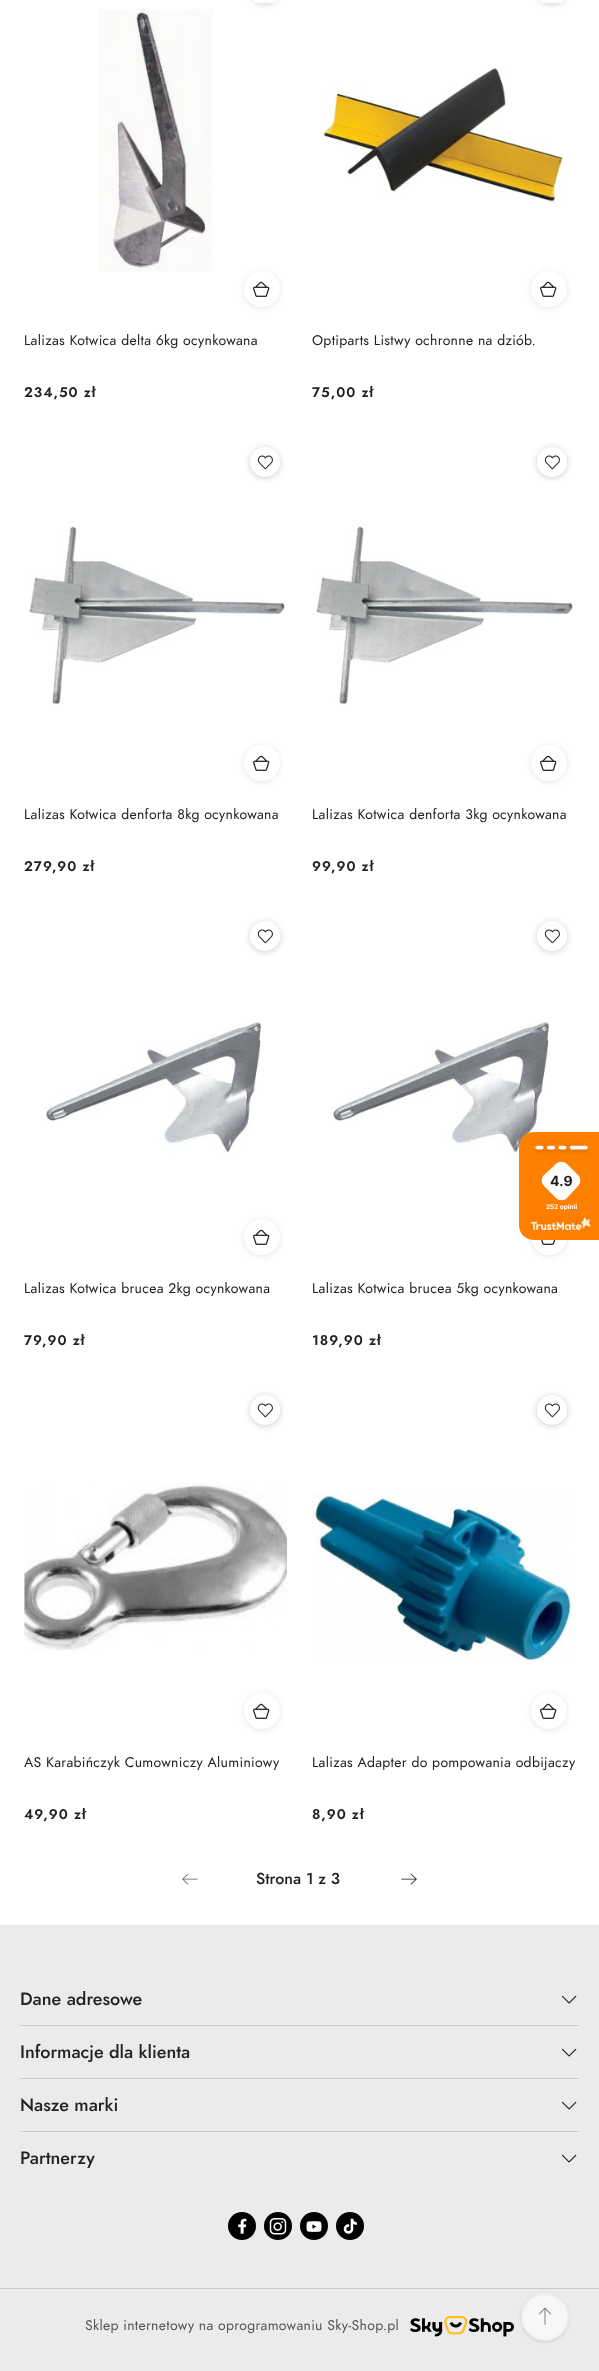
(async () => {
  const canvas = document.querySelector("canvas");
  canvas.width = 599;
  canvas.height = 2371;
  const ctx = canvas.getContext("2d");
  ctx.miterLimit = 4;
  ctx.fontKerning = "normal";
  async function loadImage(src) {
    const img = new Image();
    img.src = src;
    await img.decode();
    return img;
  }
  let path;

  ctx.fillStyle = "#ffffff";
  ctx.fillRect(0, 0, 599, 2371);
  ctx.fillStyle = "rgba(0, 0, 0, 0.2)";
  ctx.filter = "blur(3px)";
  ctx.beginPath();
  ctx.roundRect(250, -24, 30, 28, 15);
  ctx.fill();
  ctx.filter = "none";
  ctx.fillStyle = "#ffffff";
  ctx.beginPath();
  ctx.roundRect(250, -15, 30, 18, 15);
  ctx.fill();
  ctx.drawImage(await loadImage("img/1.png"), 98, 8, 115, 264);
  ctx.fillStyle = "rgba(0, 0, 0, 0.1)";
  ctx.filter = "blur(3px)";
  ctx.beginPath();
  ctx.roundRect(244, 272, 36, 36, 18);
  ctx.fill();
  ctx.filter = "none";
  ctx.fillStyle = "#ffffff";
  ctx.beginPath();
  ctx.arc(262, 289, 18, 0, Math.PI * 2);
  ctx.fill();
  ctx.drawImage(await loadImage("img/2.png"), 253, 281, 17, 16);
  ctx.fillStyle = "rgba(0, 0, 0, 0.2)";
  ctx.filter = "blur(3px)";
  ctx.beginPath();
  ctx.roundRect(537, -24, 30, 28, 15);
  ctx.fill();
  ctx.filter = "none";
  ctx.fillStyle = "#ffffff";
  ctx.beginPath();
  ctx.roundRect(537, -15, 30, 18, 15);
  ctx.fill();
  ctx.drawImage(await loadImage("img/3.png"), 322, 67, 241, 139);
  ctx.fillStyle = "rgba(0, 0, 0, 0.1)";
  ctx.filter = "blur(3px)";
  ctx.beginPath();
  ctx.roundRect(531, 272, 36, 36, 18);
  ctx.fill();
  ctx.filter = "none";
  ctx.fillStyle = "#ffffff";
  ctx.beginPath();
  ctx.arc(549, 289, 18, 0, Math.PI * 2);
  ctx.fill();
  ctx.drawImage(await loadImage("img/2.png"), 540, 281, 17, 16);
  ctx.fillStyle = "rgba(0, 0, 0, 0.2)";
  ctx.filter = "blur(3px)";
  ctx.beginPath();
  ctx.roundRect(250, 448, 30, 30, 15);
  ctx.fill();
  ctx.filter = "none";
  ctx.fillStyle = "#ffffff";
  ctx.beginPath();
  ctx.arc(265, 462, 15, 0, Math.PI * 2);
  ctx.fill();
  ctx.save();
  ctx.beginPath();
  ctx.roundRect(250, 447, 30, 30, 15);
  ctx.clip();
  ctx.fillRect(250, 454, 30, 16);
  ctx.restore();
  ctx.drawImage(await loadImage("img/4.png"), 257, 455, 16, 15);
  ctx.drawImage(await loadImage("img/5.png"), 29, 526, 257, 179);
  ctx.fillStyle = "rgba(0, 0, 0, 0.1)";
  ctx.filter = "blur(3px)";
  ctx.beginPath();
  ctx.roundRect(244, 746, 36, 36, 18);
  ctx.fill();
  ctx.filter = "none";
  ctx.fillStyle = "#ffffff";
  ctx.beginPath();
  ctx.arc(262, 763, 18, 0, Math.PI * 2);
  ctx.fill();
  ctx.drawImage(await loadImage("img/2.png"), 253, 755, 17, 16);
  ctx.fillStyle = "rgba(0, 0, 0, 0.2)";
  ctx.filter = "blur(3px)";
  ctx.beginPath();
  ctx.roundRect(537, 448, 30, 30, 15);
  ctx.fill();
  ctx.filter = "none";
  ctx.fillStyle = "#ffffff";
  ctx.beginPath();
  ctx.arc(552, 462, 15, 0, Math.PI * 2);
  ctx.fill();
  ctx.save();
  ctx.beginPath();
  ctx.roundRect(537, 447, 30, 30, 15);
  ctx.clip();
  ctx.fillRect(537, 454, 30, 16);
  ctx.restore();
  ctx.drawImage(await loadImage("img/4.png"), 544, 455, 16, 15);
  ctx.drawImage(await loadImage("img/6.png"), 316, 526, 258, 179);
  ctx.fillStyle = "rgba(0, 0, 0, 0.1)";
  ctx.filter = "blur(3px)";
  ctx.beginPath();
  ctx.roundRect(531, 746, 36, 36, 18);
  ctx.fill();
  ctx.filter = "none";
  ctx.fillStyle = "#ffffff";
  ctx.beginPath();
  ctx.arc(549, 763, 18, 0, Math.PI * 2);
  ctx.fill();
  ctx.drawImage(await loadImage("img/2.png"), 540, 755, 17, 16);
  ctx.fillStyle = "rgba(0, 0, 0, 0.2)";
  ctx.filter = "blur(3px)";
  ctx.beginPath();
  ctx.roundRect(250, 922, 30, 30, 15);
  ctx.fill();
  ctx.filter = "none";
  ctx.fillStyle = "#ffffff";
  ctx.beginPath();
  ctx.arc(265, 936, 15, 0, Math.PI * 2);
  ctx.fill();
  ctx.save();
  ctx.beginPath();
  ctx.roundRect(250, 921, 30, 30, 15);
  ctx.clip();
  ctx.fillRect(250, 928, 30, 16);
  ctx.restore();
  ctx.drawImage(await loadImage("img/4.png"), 257, 929, 16, 15);
  ctx.drawImage(await loadImage("img/7.png"), 45, 1021, 217, 132);
  ctx.fillStyle = "rgba(0, 0, 0, 0.1)";
  ctx.filter = "blur(3px)";
  ctx.beginPath();
  ctx.roundRect(244, 1220, 36, 36, 18);
  ctx.fill();
  ctx.filter = "none";
  ctx.fillStyle = "#ffffff";
  ctx.beginPath();
  ctx.arc(262, 1237, 18, 0, Math.PI * 2);
  ctx.fill();
  ctx.drawImage(await loadImage("img/2.png"), 253, 1229, 17, 16);
  ctx.fillStyle = "rgba(0, 0, 0, 0.2)";
  ctx.filter = "blur(3px)";
  ctx.beginPath();
  ctx.roundRect(537, 922, 30, 30, 15);
  ctx.fill();
  ctx.filter = "none";
  ctx.fillStyle = "#ffffff";
  ctx.beginPath();
  ctx.arc(552, 936, 15, 0, Math.PI * 2);
  ctx.fill();
  ctx.save();
  ctx.beginPath();
  ctx.roundRect(537, 921, 30, 30, 15);
  ctx.clip();
  ctx.fillRect(537, 928, 30, 16);
  ctx.restore();
  ctx.drawImage(await loadImage("img/4.png"), 544, 929, 16, 15);
  ctx.drawImage(await loadImage("img/8.png"), 332, 1021, 218, 132);
  ctx.fillStyle = "rgba(0, 0, 0, 0.1)";
  ctx.filter = "blur(3px)";
  ctx.beginPath();
  ctx.roundRect(531, 1220, 36, 36, 18);
  ctx.fill();
  ctx.filter = "none";
  ctx.fillStyle = "#ffffff";
  ctx.beginPath();
  ctx.arc(549, 1237, 18, 0, Math.PI * 2);
  ctx.fill();
  ctx.drawImage(await loadImage("img/9.png"), 541, 1240, 15, 5);
  ctx.fillStyle = "rgba(0, 0, 0, 0.2)";
  ctx.filter = "blur(3px)";
  ctx.beginPath();
  ctx.roundRect(250, 1396, 30, 30, 15);
  ctx.fill();
  ctx.filter = "none";
  ctx.fillStyle = "#ffffff";
  ctx.beginPath();
  ctx.arc(265, 1410, 15, 0, Math.PI * 2);
  ctx.fill();
  ctx.save();
  ctx.beginPath();
  ctx.roundRect(250, 1395, 30, 30, 15);
  ctx.clip();
  ctx.fillRect(250, 1402, 30, 16);
  ctx.restore();
  ctx.drawImage(await loadImage("img/4.png"), 257, 1403, 16, 15);
  ctx.drawImage(await loadImage("img/10.png"), 24, 1483, 264, 168);
  ctx.fillStyle = "rgba(0, 0, 0, 0.1)";
  ctx.filter = "blur(3px)";
  ctx.beginPath();
  ctx.roundRect(244, 1694, 36, 36, 18);
  ctx.fill();
  ctx.filter = "none";
  ctx.fillStyle = "#ffffff";
  ctx.beginPath();
  ctx.arc(262, 1711, 18, 0, Math.PI * 2);
  ctx.fill();
  ctx.drawImage(await loadImage("img/2.png"), 253, 1703, 17, 16);
  ctx.fillStyle = "rgba(0, 0, 0, 0.2)";
  ctx.filter = "blur(3px)";
  ctx.beginPath();
  ctx.roundRect(537, 1396, 30, 30, 15);
  ctx.fill();
  ctx.filter = "none";
  ctx.fillStyle = "#ffffff";
  ctx.beginPath();
  ctx.arc(552, 1410, 15, 0, Math.PI * 2);
  ctx.fill();
  ctx.save();
  ctx.beginPath();
  ctx.roundRect(537, 1395, 30, 30, 15);
  ctx.clip();
  ctx.fillRect(537, 1402, 30, 16);
  ctx.restore();
  ctx.drawImage(await loadImage("img/4.png"), 544, 1403, 16, 15);
  ctx.drawImage(await loadImage("img/11.png"), 312, 1490, 263, 172);
  ctx.fillStyle = "rgba(0, 0, 0, 0.1)";
  ctx.filter = "blur(3px)";
  ctx.beginPath();
  ctx.roundRect(531, 1694, 36, 36, 18);
  ctx.fill();
  ctx.filter = "none";
  ctx.fillStyle = "#ffffff";
  ctx.beginPath();
  ctx.arc(549, 1711, 18, 0, Math.PI * 2);
  ctx.fill();
  ctx.drawImage(await loadImage("img/2.png"), 540, 1703, 17, 16);
  ctx.drawImage(await loadImage("img/12.png"), 182, 1873, 16, 12);
  ctx.drawImage(await loadImage("img/13.png"), 401, 1873, 16, 12);
  ctx.fillStyle = "#ebebeb";
  ctx.fillRect(0, 1925, 599, 446);
  ctx.fillStyle = "#cccccc";
  ctx.fillRect(20, 2025, 559, 1);
  ctx.drawImage(await loadImage("img/14.png"), 561, 1995, 16, 9);
  ctx.fillRect(20, 2078, 559, 1);
  ctx.drawImage(await loadImage("img/14.png"), 561, 2048, 16, 9);
  ctx.fillRect(20, 2131, 559, 1);
  ctx.drawImage(await loadImage("img/14.png"), 561, 2101, 16, 9);
  ctx.drawImage(await loadImage("img/14.png"), 561, 2154, 16, 9);
  ctx.fillStyle = "#000000";
  ctx.beginPath();
  ctx.arc(242, 2226, 14, 0, Math.PI * 2);
  ctx.fill();
  ctx.drawImage(await loadImage("img/15.png"), 238, 2218, 9, 16);
  ctx.beginPath();
  ctx.arc(278, 2226, 14, 0, Math.PI * 2);
  ctx.fill();
  ctx.drawImage(await loadImage("img/16.png"), 269, 2218, 18, 17);
  ctx.beginPath();
  ctx.arc(314, 2226, 14, 0, Math.PI * 2);
  ctx.fill();
  ctx.drawImage(await loadImage("img/17.png"), 306, 2221, 16, 11);
  ctx.beginPath();
  ctx.arc(350, 2226, 14, 0, Math.PI * 2);
  ctx.fill();
  ctx.drawImage(await loadImage("img/18.png"), 343, 2218, 14, 16);
  ctx.fillStyle = "#cccccc";
  ctx.fillRect(0, 2288, 599, 1);
  ctx.drawImage(await loadImage("img/19.png"), 410, 2316, 104, 21);
  ctx.fillStyle = "#ff8000";
  path = new Path2D("M534 1132H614V1240H534C525.5 1240 519 1233.5 519 1225V1147C519 1138.5 525.5 1132 534 1132Z");
  ctx.fill(path);
  ctx.drawImage(await loadImage("img/20.png"), 534, 1141, 55, 14);
  ctx.fillStyle = "#ffffff";
  path = new Path2D("M567 1164L578 1175C581 1178 581 1183 578 1186L567 1198C564 1201 559 1201 556 1198L544 1186C541 1183 541 1178 544 1175L556 1164C559 1161 564 1161 567 1164Z");
  ctx.fill(path);
  ctx.drawImage(await loadImage("img/21.png"), 531, 1216, 60, 15);
  ctx.fillStyle = "rgba(94, 94, 94, 0.2)";
  ctx.filter = "blur(1.5px)";
  ctx.beginPath();
  ctx.roundRect(521, 2294, 48, 48, 24);
  ctx.fill();
  ctx.filter = "none";
  ctx.fillStyle = "#f7f7f7";
  ctx.beginPath();
  ctx.arc(545, 2317, 23, 0, Math.PI * 2);
  ctx.fill();
  ctx.strokeStyle = "#efefef";
  ctx.lineWidth = 2;
  ctx.stroke();
  ctx.drawImage(await loadImage("img/22.png"), 539, 2307, 12, 18);
  ctx.letterSpacing = "0.3px";
  ctx.font = "14px Jost";
  ctx.fillStyle = "#222222";
  ctx.fillText("Lalizas Kotwica delta 6kg ocynkowana", 24, 345);
  ctx.letterSpacing = "1px";
  ctx.font = "600 14px Jost";
  ctx.fillText("234,50 zł", 24, 397);
  ctx.letterSpacing = "0.3px";
  ctx.font = "14px Jost";
  ctx.fillText("Optiparts Listwy ochronne na dziób.", 312, 345);
  ctx.letterSpacing = "1px";
  ctx.font = "600 14px Jost";
  ctx.fillText("75,00 zł", 312, 397);
  ctx.letterSpacing = "0.3px";
  ctx.font = "14px Jost";
  ctx.fillText("Lalizas Kotwica denforta 8kg ocynkowana", 24, 819);
  ctx.letterSpacing = "1px";
  ctx.font = "600 14px Jost";
  ctx.fillText("279,90 zł", 24, 871);
  ctx.letterSpacing = "0.3px";
  ctx.font = "14px Jost";
  ctx.fillText("Lalizas Kotwica denforta 3kg ocynkowana", 312, 819);
  ctx.letterSpacing = "1px";
  ctx.font = "600 14px Jost";
  ctx.fillText("99,90 zł", 312, 871);
  ctx.letterSpacing = "0.3px";
  ctx.font = "14px Jost";
  ctx.fillText("Lalizas Kotwica brucea 2kg ocynkowana", 24, 1293);
  ctx.letterSpacing = "1px";
  ctx.font = "600 14px Jost";
  ctx.fillText("79,90 zł", 24, 1345);
  ctx.letterSpacing = "0.3px";
  ctx.font = "14px Jost";
  ctx.fillText("Lalizas Kotwica brucea 5kg ocynkowana", 312, 1293);
  ctx.letterSpacing = "1px";
  ctx.font = "600 14px Jost";
  ctx.fillText("189,90 zł", 312, 1345);
  ctx.letterSpacing = "0.3px";
  ctx.font = "14px Jost";
  ctx.fillText("AS Karabińczyk Cumowniczy Aluminiowy", 24, 1767);
  ctx.letterSpacing = "1px";
  ctx.font = "600 14px Jost";
  ctx.fillText("49,90 zł", 24, 1819);
  ctx.letterSpacing = "0.3px";
  ctx.font = "14px Jost";
  ctx.fillText("Lalizas Adapter do pompowania odbijaczy", 312, 1767);
  ctx.letterSpacing = "1px";
  ctx.font = "600 14px Jost";
  ctx.fillText("8,90 zł", 312, 1819);
  ctx.letterSpacing = "0px";
  ctx.font = "500 16px Jost";
  ctx.fillText("Strona 1 z 3", 256, 1884);
  ctx.font = "500 18px Jost";
  for (const [text, x, y] of [
    ["Dane adresowe", 20, 2005],
    ["Informacje dla klienta", 20, 2058],
    ["Nasze marki", 20, 2111],
    ["Partnerzy", 20, 2164],
  ]) {
    ctx.fillText(text, x, y);
  }
  ctx.letterSpacing = "0.3px";
  ctx.font = "14px Jost";
  ctx.fillStyle = "#555555";
  ctx.fillText("Sklep internetowy na oprogramowaniu Sky-Shop.pl", 85, 2330);
  ctx.letterSpacing = "0px";
  ctx.font = "bold 14px Inter";
  ctx.fillStyle = "#1d1d1b";
  ctx.fillText("4.9", 550, 1186);
  ctx.font = "bold 6.5px Inter";
  ctx.fillStyle = "#ffffff";
  ctx.fillText("252 opinii", 546, 1209);
})();
